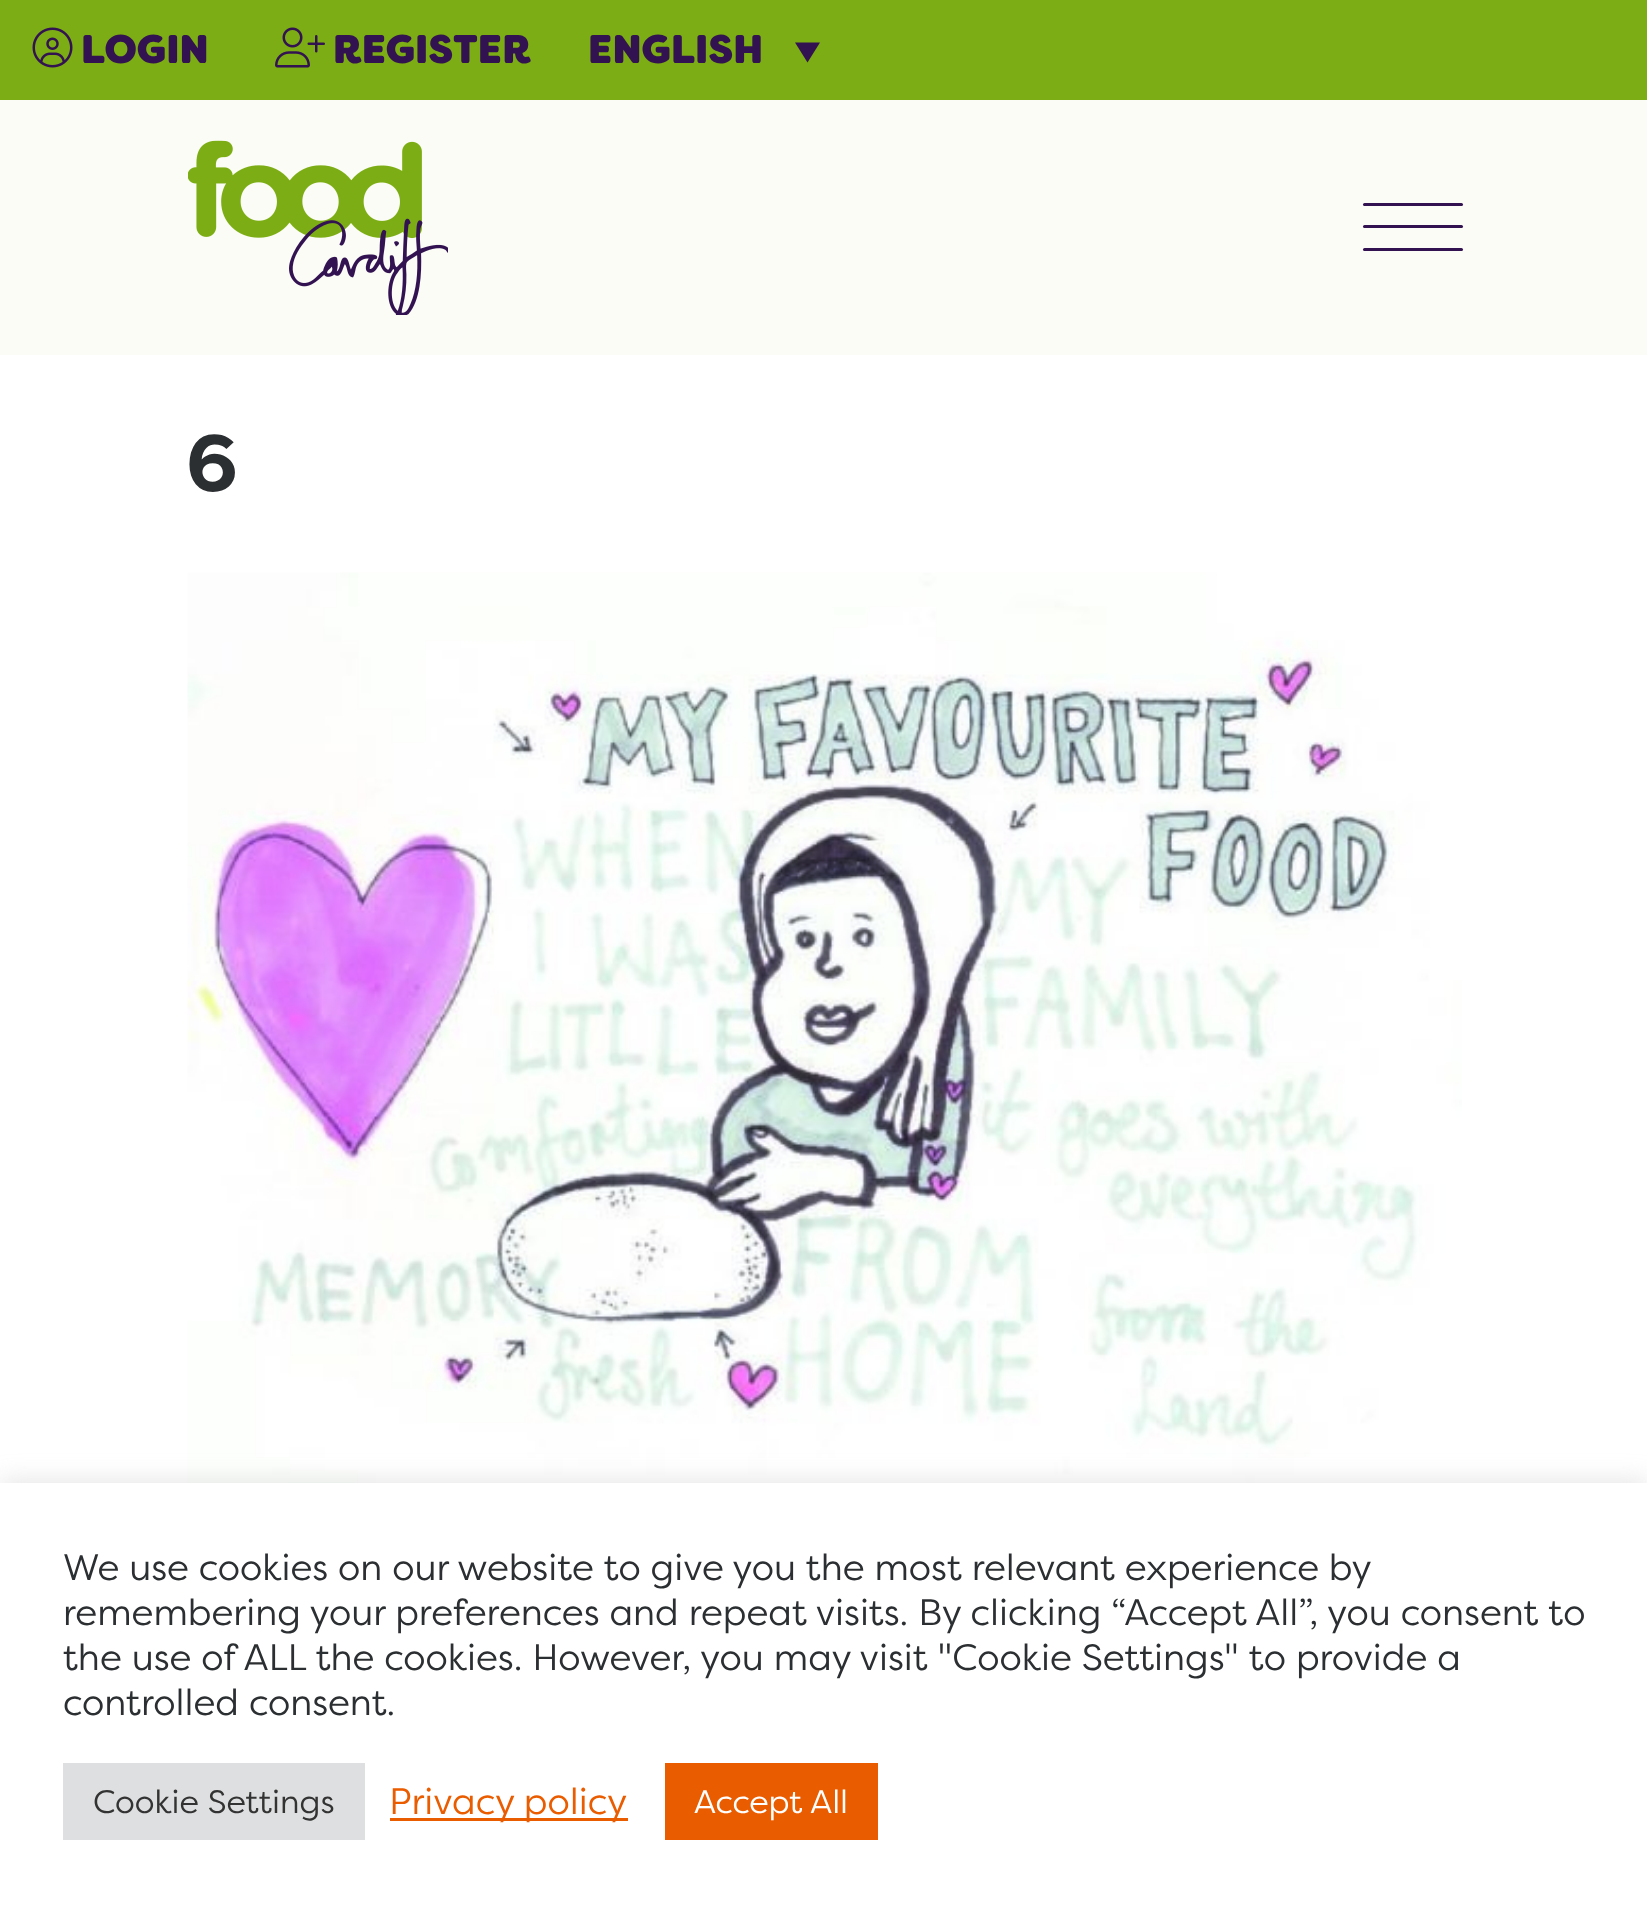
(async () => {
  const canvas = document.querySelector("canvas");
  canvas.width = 1647;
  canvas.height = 1913;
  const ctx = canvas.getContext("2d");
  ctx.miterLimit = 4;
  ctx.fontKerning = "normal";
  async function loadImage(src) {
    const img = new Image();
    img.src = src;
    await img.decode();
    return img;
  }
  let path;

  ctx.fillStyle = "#ffffff";
  ctx.fillRect(0, 0, 1647, 1913);
  ctx.fillStyle = "#7dad14";
  ctx.fillRect(0, 0, 1647, 100);
  ctx.drawImage(await loadImage("img/1.png"), 32, 27, 41, 41);
  ctx.drawImage(await loadImage("img/2.png"), 275, 27, 50, 41);
  ctx.fillStyle = "#331252";
  path = new Path2D("M795 42.5H820L807.5 62.5Z");
  ctx.fill(path);
  ctx.fillStyle = "#fafcf5";
  ctx.fillRect(0, 100, 1647, 255);
  ctx.drawImage(await loadImage("img/3.png"), 188, 140, 260, 175);
  ctx.fillStyle = "#331252";
  ctx.beginPath();
  ctx.roundRect(1363, 225, 100, 3, 1.5);
  ctx.fill();
  ctx.beginPath();
  ctx.roundRect(1363, 203, 100, 3, 1.5);
  ctx.fill();
  ctx.beginPath();
  ctx.roundRect(1363, 248, 100, 3, 1.5);
  ctx.fill();
  ctx.drawImage(await loadImage("img/4.png"), 187, 572, 1275, 911);
  ctx.fillStyle = "rgba(172, 171, 171, 0.3)";
  ctx.filter = "blur(12.5px)";
  ctx.beginPath();
  ctx.rect(0, 1480, 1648, 433);
  ctx.fill();
  ctx.filter = "none";
  for (const [x, y, w, h, color] of [
    [0, 1483, 1647, 430, "#ffffff"],
    [63, 1763, 302, 77, "#dedfe0"],
    [390, 1818, 238, 3, "#ea5c00"],
    [665, 1763, 213, 77, "#ea5c00"],
  ]) {
    ctx.fillStyle = color;
    ctx.fillRect(x, y, w, h);
  }
  ctx.font = "900 40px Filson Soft";
  ctx.fillStyle = "#331252";
  for (const [text, x, y] of [
    ["LOGIN", 81, 63],
    ["REGISTER", 333, 63],
    ["ENGLISH", 588, 63],
  ]) {
    ctx.fillText(text, x, y);
  }
  ctx.font = "bold 80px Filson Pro";
  ctx.fillStyle = "#2c2f32";
  ctx.fillText("6", 186, 491);
  ctx.wordSpacing = "-0.1px";
  ctx.font = "36.65px Filson Pro";
  ctx.fillText("We use cookies on our website to give you the most relevant experience by", 63, 1580);
  ctx.wordSpacing = "0px";
  for (const [text, x, y] of [
    ["remembering your preferences and repeat visits. By clicking “Accept All”, you consent to", 63, 1625],
    ["the use of ALL the cookies. However, you may visit \"Cookie Settings\" to provide a", 63, 1670],
    ["controlled consent.", 63, 1715],
  ]) {
    ctx.fillText(text, x, y);
  }
  ctx.font = "32.5px Filson Pro";
  ctx.fillStyle = "#333333";
  ctx.fillText("Cookie Settings", 93, 1813);
  ctx.font = "36.65px Filson Pro";
  ctx.fillStyle = "#ea5c00";
  ctx.fillText("Privacy policy", 389, 1814);
  ctx.font = "32.5px Filson Pro";
  ctx.fillStyle = "#ffffff";
  ctx.fillText("Accept All", 694, 1813);
})();
